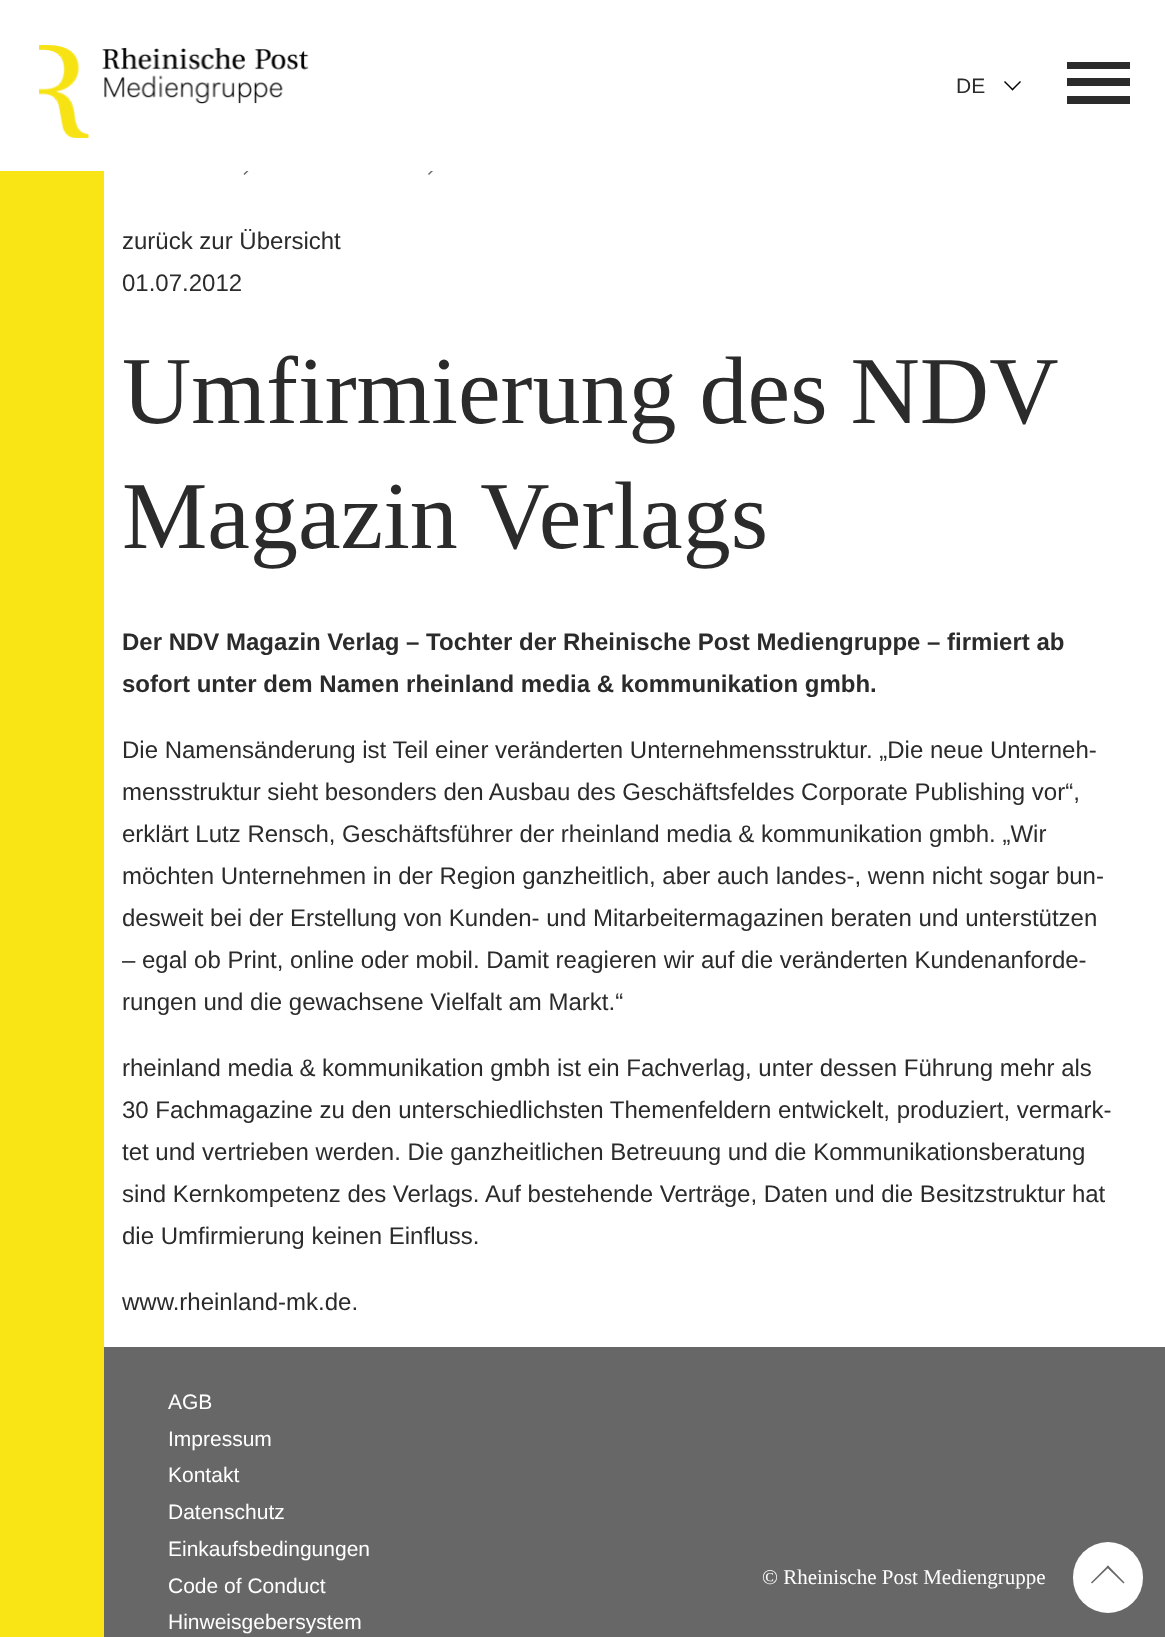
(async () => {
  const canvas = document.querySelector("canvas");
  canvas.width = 1165;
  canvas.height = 1637;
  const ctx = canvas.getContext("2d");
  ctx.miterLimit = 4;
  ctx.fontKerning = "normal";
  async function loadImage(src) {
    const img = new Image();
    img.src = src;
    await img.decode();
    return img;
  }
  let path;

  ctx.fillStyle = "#ffffff";
  ctx.fillRect(0, 0, 1165, 1637);
  ctx.fillStyle = "#676767";
  path = new Path2D("M252 165.5L253 166.5L244.5 175L243.5 174Z");
  ctx.fill(path);
  path = new Path2D("M436.5 165.5L437.5 166.5L429 175L428 174Z");
  ctx.fill(path);
  ctx.fillStyle = "#ffffff";
  ctx.fillRect(246, 165, 192, 6);
  ctx.drawImage(await loadImage("img/1.png"), 39, 45, 50, 93);
  ctx.drawImage(await loadImage("img/2.png"), 102, 47, 207, 57);
  ctx.fillStyle = "#000000";
  path = new Path2D("M1020 81L1021 82L1012.5 90.5L1011.5 89.5Z");
  ctx.fill(path);
  path = new Path2D("M1005 81L1013.5 89.5L1012.5 90.5L1004 82Z");
  ctx.fill(path);
  for (const [x, y, w, h, color] of [
    [1067, 62, 63, 7, "#2b2b2b"],
    [1067, 78, 63, 8, "#2b2b2b"],
    [1067, 96, 63, 8, "#2b2b2b"],
    [0, 171, 104, 1466, "#f9e515"],
    [104, 1347, 1061, 290, "#676767"],
  ]) {
    ctx.fillStyle = color;
    ctx.fillRect(x, y, w, h);
  }
  ctx.fillStyle = "#ffffff";
  ctx.beginPath();
  ctx.roundRect(1073, 1542, 70, 71, 35);
  ctx.fill();
  ctx.fillStyle = "#676767";
  path = new Path2D("M1108 1565.5L1124.5 1582.5L1123.5 1583.5L1106.5 1567Z");
  ctx.fill(path);
  path = new Path2D("M1108 1565.5L1109 1567L1092 1583.5L1091 1582.5Z");
  ctx.fill(path);
  ctx.font = "21px Liberation Sans";
  ctx.fillStyle = "#2b2b2b";
  ctx.fillText("DE", 956, 93);
  ctx.font = "24px Liberation Sans";
  ctx.fillText("zurück zur Übersicht", 122, 249);
  ctx.fillText("01.07.2012", 122, 291);
  ctx.wordSpacing = "-1px";
  ctx.font = "96px Liberation Serif";
  ctx.fillText("Umfirmierung des NDV", 122, 423);
  ctx.wordSpacing = "0px";
  ctx.fillText("Magazin Verlags", 122, 548);
  ctx.font = "bold 24px Liberation Sans";
  ctx.fillText("Der NDV Magazin Verlag – Tochter der Rheinische Post Mediengruppe – firmiert ab", 122, 650);
  ctx.fillText("sofort unter dem Namen rheinland media & kommunikation gmbh.", 122, 692);
  ctx.font = "24px Liberation Sans";
  for (const [text, x, y] of [
    ["Die Namensänderung ist Teil einer veränderten Unternehmensstruktur. „Die neue Unterneh-", 122, 758],
    ["mensstruktur sieht besonders den Ausbau des Geschäftsfeldes Corporate Publishing vor“,", 122, 800],
    ["erklärt Lutz Rensch, Geschäftsführer der rheinland media & kommunikation gmbh. „Wir", 122, 842],
    ["möchten Unternehmen in der Region ganzheitlich, aber auch landes-, wenn nicht sogar bun-", 122, 884],
    ["desweit bei der Erstellung von Kunden- und Mitarbeitermagazinen beraten und unterstützen", 122, 926],
    ["– egal ob Print, online oder mobil. Damit reagieren wir auf die veränderten Kundenanforde-", 122, 968],
    ["rungen und die gewachsene Vielfalt am Markt.“", 122, 1010],
    ["rheinland media & kommunikation gmbh ist ein Fachverlag, unter dessen Führung mehr als", 122, 1076],
    ["30 Fachmagazine zu den unterschiedlichsten Themenfeldern entwickelt, produziert, vermark-", 122, 1118],
    ["tet und vertrieben werden. Die ganzheitlichen Betreuung und die Kommunikationsberatung", 122, 1160],
    ["sind Kernkompetenz des Verlags. Auf bestehende Verträge, Daten und die Besitzstruktur hat", 122, 1202],
    ["die Umfirmierung keinen Einfluss.", 122, 1244],
    ["www.rheinland-mk.de.", 122, 1310],
  ]) {
    ctx.fillText(text, x, y);
  }
  ctx.font = "21px Liberation Sans";
  ctx.fillStyle = "#ffffff";
  for (const [text, x, y] of [
    ["AGB", 168, 1409],
    ["Impressum", 168, 1446],
    ["Kontakt", 168, 1482],
    ["Datenschutz", 168, 1519],
    ["Einkaufsbedingungen", 168, 1556],
    ["Code of Conduct", 168, 1593],
    ["Hinweisgebersystem", 168, 1629],
  ]) {
    ctx.fillText(text, x, y);
  }
  ctx.font = "21px Liberation Serif";
  ctx.fillText("© Rheinische Post Mediengruppe", 762, 1584);
})();
